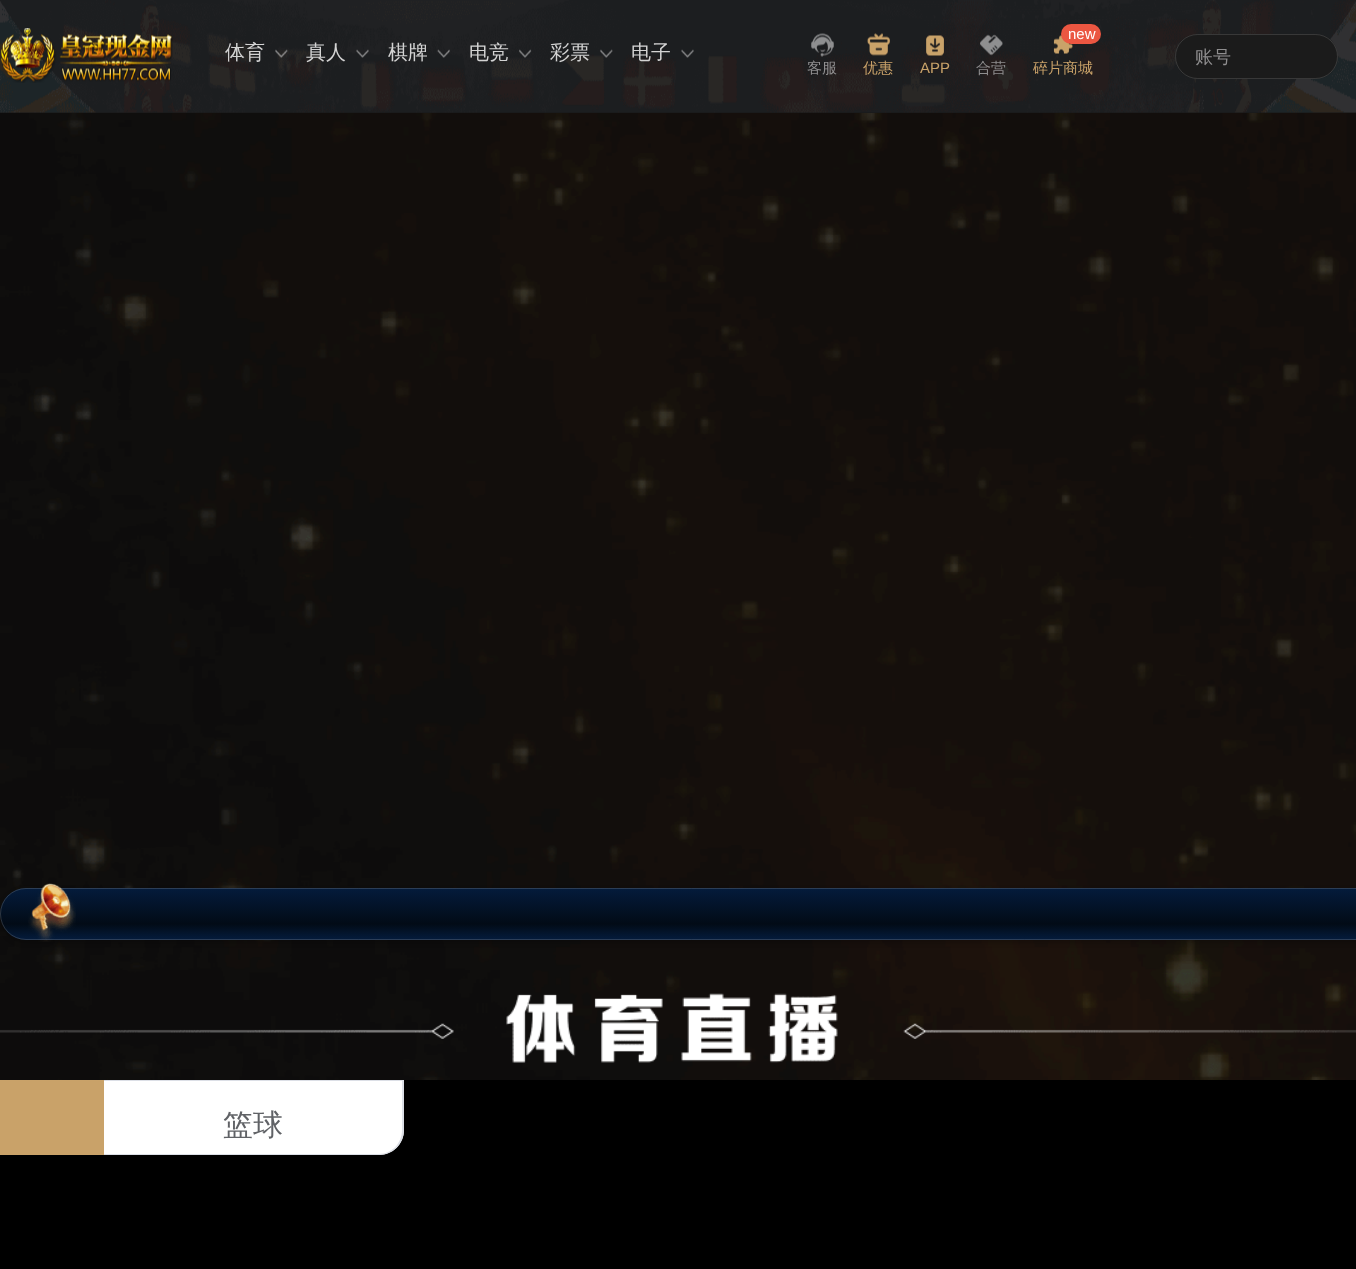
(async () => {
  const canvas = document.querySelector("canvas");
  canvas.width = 1356;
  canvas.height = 1269;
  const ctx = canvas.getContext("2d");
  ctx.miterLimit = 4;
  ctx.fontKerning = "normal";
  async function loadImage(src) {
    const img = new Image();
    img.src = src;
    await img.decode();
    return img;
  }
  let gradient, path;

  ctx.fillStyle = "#ffffff";
  ctx.fillRect(0, 0, 1356, 1269);
  ctx.fillStyle = "#1b1b1b";
  ctx.fillRect(0, 0, 1356, 113);
  ctx.drawImage(await loadImage("img/1.png"), 0, 0, 1356, 113);
  ctx.drawImage(await loadImage("img/2.png"), 0, 28, 173, 55);
  ctx.drawImage(await loadImage("img/3.png"), 275, 49, 13, 9);
  ctx.drawImage(await loadImage("img/4.png"), 356, 49, 13, 9);
  ctx.drawImage(await loadImage("img/5.png"), 437, 49, 13, 9);
  ctx.drawImage(await loadImage("img/6.png"), 519, 49, 13, 9);
  ctx.drawImage(await loadImage("img/7.png"), 600, 49, 13, 9);
  ctx.drawImage(await loadImage("img/8.png"), 681, 49, 13, 9);
  ctx.drawImage(await loadImage("img/9.png"), 811, 33, 23, 24);
  ctx.drawImage(await loadImage("img/10.png"), 867, 33, 23, 23);
  ctx.drawImage(await loadImage("img/11.png"), 926, 35, 18, 21);
  ctx.drawImage(await loadImage("img/12.png"), 980, 34, 23, 22);
  ctx.drawImage(await loadImage("img/13.png"), 1053, 35, 20, 19);
  ctx.fillStyle = "#eb5641";
  ctx.beginPath();
  ctx.roundRect(1061, 24, 40, 20, 10);
  ctx.fill();
  ctx.fillStyle = "#1b1b1b";
  ctx.beginPath();
  ctx.roundRect(1175, 34, 163, 45, 22.5);
  ctx.fill();
  ctx.beginPath();
  ctx.roundRect(1175.5, 34.5, 162, 44, 22);
  ctx.strokeStyle = "rgba(229, 229, 229, 0.15)";
  ctx.stroke();
  ctx.drawImage(await loadImage("img/14.png"), 0, 113, 1356, 967);
  ctx.fillStyle = "rgba(0, 0, 0, 0.2)";
  ctx.filter = "blur(2.5px)";
  ctx.beginPath();
  ctx.roundRect(0, 890, 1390, 53, 26.5);
  ctx.fill();
  ctx.filter = "none";
  ctx.save();
  ctx.beginPath();
  ctx.roundRect(0, 888, 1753, 52, 26);
  ctx.clip();
  gradient = ctx.createLinearGradient(876, 839, 876, 889);
  gradient.addColorStop(0, "#041b3b");
  gradient.addColorStop(0.7, "#020b16");
  gradient.addColorStop(1, "#041b3b");
  ctx.fillStyle = gradient;
  ctx.fillRect(19, 888, 1337, 1);
  gradient = ctx.createLinearGradient(876, 889, 876, 939);
  gradient.addColorStop(0, "#041b3b");
  gradient.addColorStop(0.7, "#020b16");
  gradient.addColorStop(1, "#041b3b");
  ctx.fillStyle = gradient;
  ctx.fillRect(0, 889, 1356, 50);
  gradient = ctx.createLinearGradient(876, 939, 876, 989);
  gradient.addColorStop(0, "#041b3b");
  gradient.addColorStop(0.7, "#020b16");
  gradient.addColorStop(1, "#041b3b");
  ctx.fillStyle = gradient;
  ctx.fillRect(19, 939, 1337, 1);
  ctx.restore();
  ctx.beginPath();
  ctx.roundRect(0.5, 888.5, 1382, 51, 25.5);
  ctx.strokeStyle = "rgba(203, 203, 203, 0.2)";
  ctx.stroke();
  ctx.drawImage(await loadImage("img/15.png"), 28, 883, 48, 59);
  ctx.drawImage(await loadImage("img/16.png"), 0, 993, 1356, 70);
  ctx.fillStyle = "#000000";
  ctx.fillRect(0, 1080, 1356, 189);
  ctx.fillStyle = "#c9a269";
  ctx.fillRect(0, 1080, 104, 75);
  ctx.fillStyle = "#ffffff";
  ctx.beginPath();
  ctx.roundRect(104, 1080, 300, 75, [0, 0, 25, 0]);
  ctx.fill();
  ctx.fillStyle = "#dcdfe6";
  path = new Path2D("M104 1080H404V1130C404 1144 393 1155 379 1155H104ZM104 1081H402V1130C402 1143 392 1154 379 1154H104Z");
  ctx.fill(path, "evenodd");
  ctx.font = "500 20px WenQuanYi Zen Hei";
  ctx.fillStyle = "#d3d3d3";
  for (const [text, x, y] of [
    ["体育", 225, 59],
    ["真人", 306, 59],
    ["棋牌", 388, 59],
    ["电竞", 469, 59],
    ["彩票", 550, 59],
    ["电子", 631, 59],
  ]) {
    ctx.fillText(text, x, y);
  }
  ctx.font = "500 15px WenQuanYi Zen Hei";
  ctx.fillStyle = "#8f8e8f";
  ctx.fillText("客服", 807, 73);
  ctx.fillStyle = "#c9a269";
  ctx.fillText("优惠", 863, 73);
  ctx.font = "15px Liberation Sans";
  ctx.fillText("APP", 920, 73);
  ctx.font = "500 15px WenQuanYi Zen Hei";
  ctx.fillStyle = "#8f8e8f";
  ctx.fillText("合营", 976, 73);
  ctx.font = "15px Liberation Sans";
  ctx.fillStyle = "#ffffff";
  ctx.fillText("new", 1068, 39);
  ctx.font = "500 15px WenQuanYi Zen Hei";
  ctx.fillStyle = "#c9a269";
  ctx.fillText("碎片商城", 1033, 73);
  ctx.font = "500 18px WenQuanYi Zen Hei";
  ctx.fillStyle = "#8f8e8f";
  ctx.fillText("账号", 1195, 63);
  ctx.font = "500 30px WenQuanYi Zen Hei";
  ctx.fillStyle = "#606266";
  ctx.fillText("篮球", 223, 1135);
})();
